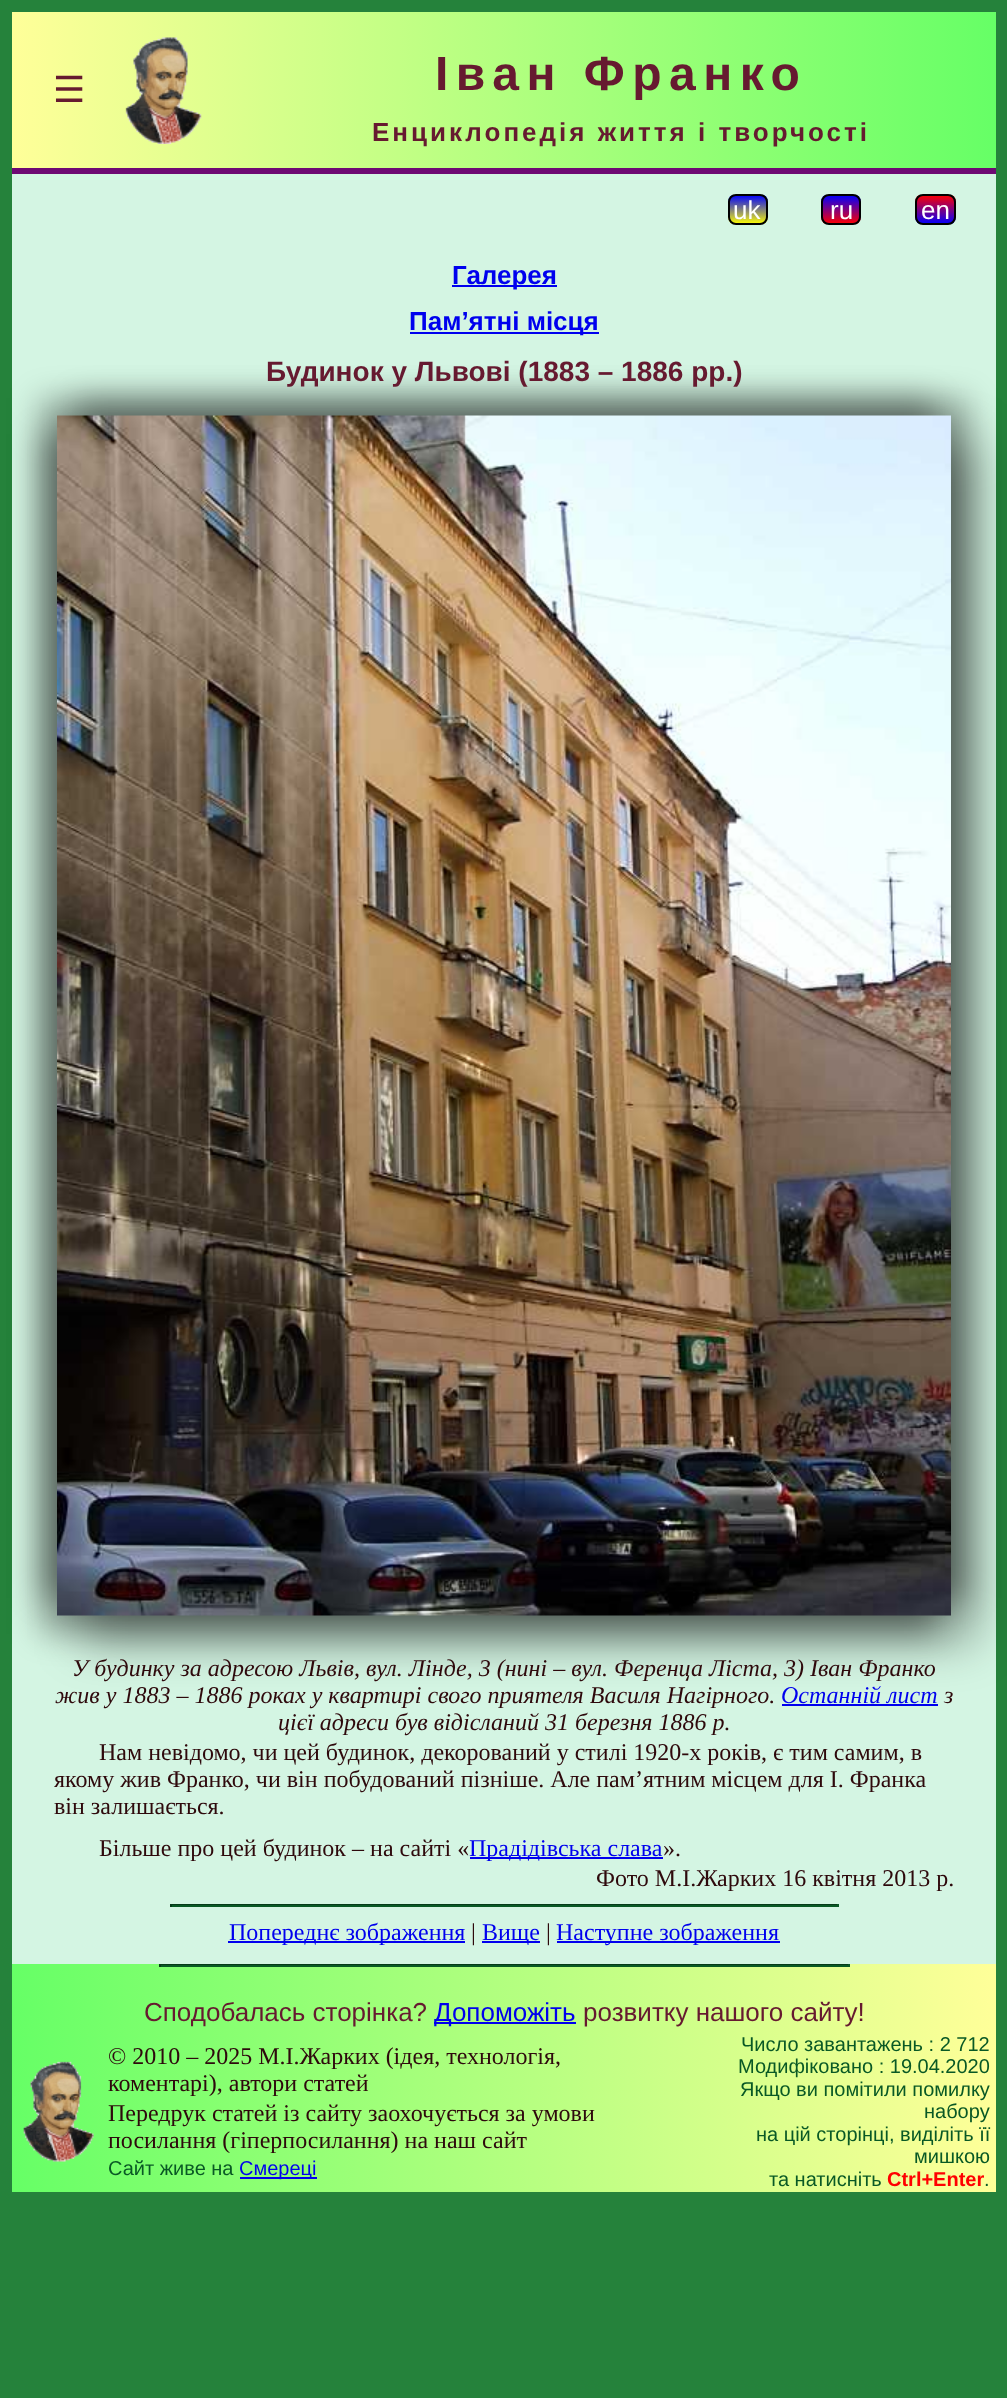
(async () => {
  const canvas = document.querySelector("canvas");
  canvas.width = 1007;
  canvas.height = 2398;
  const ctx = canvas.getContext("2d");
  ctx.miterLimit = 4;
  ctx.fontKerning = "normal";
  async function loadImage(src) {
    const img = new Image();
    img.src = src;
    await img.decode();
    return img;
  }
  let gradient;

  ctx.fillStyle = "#25823b";
  ctx.fillRect(0, 0, 1007, 2398);
  gradient = ctx.createLinearGradient(12, 90, 996, 90);
  gradient.addColorStop(0, "#ffff99");
  gradient.addColorStop(1, "#66ff66");
  ctx.fillStyle = gradient;
  ctx.fillRect(12, 12, 984, 156);
  ctx.fillStyle = "#6e0973";
  ctx.fillRect(12, 168, 984, 6);
  ctx.drawImage(await loadImage("img/1.png"), 125, 37, 77, 107);
  ctx.fillStyle = "#d4f5e3";
  ctx.fillRect(12, 174, 984, 1790);
  ctx.save();
  ctx.beginPath();
  ctx.roundRect(728, 194, 40, 31, 8);
  ctx.clip();
  gradient = ctx.createLinearGradient(748, 195, 748, 224);
  gradient.addColorStop(0, "#0000ff");
  gradient.addColorStop(1, "#ffff00");
  ctx.fillStyle = gradient;
  ctx.fillRect(728, 195, 40, 29);
  ctx.restore();
  ctx.beginPath();
  ctx.roundRect(729, 195, 38, 29, 7);
  ctx.strokeStyle = "#000000";
  ctx.lineWidth = 2;
  ctx.stroke();
  ctx.save();
  ctx.beginPath();
  ctx.roundRect(821, 194, 40, 31, 8);
  ctx.clip();
  gradient = ctx.createLinearGradient(841, 195, 841, 224);
  gradient.addColorStop(0, "#0000ff");
  gradient.addColorStop(1, "#ff0000");
  ctx.fillStyle = gradient;
  ctx.fillRect(821, 195, 40, 29);
  ctx.restore();
  ctx.beginPath();
  ctx.roundRect(822, 195, 38, 29, 7);
  ctx.stroke();
  ctx.save();
  ctx.beginPath();
  ctx.roundRect(915, 194, 41, 31, 8);
  ctx.clip();
  gradient = ctx.createLinearGradient(935, 195, 935, 224);
  gradient.addColorStop(0, "#ff0000");
  gradient.addColorStop(1, "#0000ff");
  ctx.fillStyle = gradient;
  ctx.fillRect(915, 195, 41, 29);
  ctx.restore();
  ctx.beginPath();
  ctx.roundRect(916, 195, 39, 29, 7);
  ctx.stroke();
  ctx.fillStyle = "#0000ee";
  ctx.fillRect(452, 285, 105, 2);
  ctx.fillRect(410, 332, 189, 2);
  ctx.fillStyle = "rgba(0, 0, 0, 0.4)";
  ctx.filter = "blur(24px)";
  ctx.beginPath();
  ctx.rect(81, 440, 894, 1200);
  ctx.fill();
  ctx.filter = "none";
  ctx.fillStyle = "rgba(0, 0, 0, 0.3)";
  ctx.filter = "blur(15px)";
  ctx.beginPath();
  ctx.rect(75, 398, 894, 1200);
  ctx.fill();
  ctx.filter = "none";
  ctx.filter = "blur(15px)";
  ctx.beginPath();
  ctx.rect(39, 434, 894, 1200);
  ctx.fill();
  ctx.filter = "none";
  ctx.filter = "blur(15px)";
  ctx.beginPath();
  ctx.rect(39, 398, 894, 1200);
  ctx.fill();
  ctx.filter = "none";
  ctx.drawImage(await loadImage("img/2.png"), 57, 415, 894, 1201);
  for (const [x, y, w, h, color] of [
    [782, 1704, 156, 2, "#0000ee"],
    [470, 1857, 193, 2, "#0000ee"],
    [170, 1904, 669, 1, "#063b19"],
    [837, 1904, 2, 3, "#095925"],
    [170, 1905, 669, 2, "#095925"],
    [170, 1904, 2, 3, "#063b19"],
    [228, 1941, 237, 2, "#0000ee"],
    [482, 1941, 58, 2, "#0000ee"],
    [557, 1941, 223, 2, "#0000ee"],
  ]) {
    ctx.fillStyle = color;
    ctx.fillRect(x, y, w, h);
  }
  gradient = ctx.createLinearGradient(12, 2078, 996, 2078);
  gradient.addColorStop(0, "#66ff66");
  gradient.addColorStop(1, "#ffff99");
  ctx.fillStyle = gradient;
  ctx.fillRect(12, 1964, 984, 228);
  for (const [x, y, w, h, color] of [
    [159, 1964, 690, 1, "#063b19"],
    [848, 1964, 2, 3, "#095925"],
    [159, 1965, 690, 2, "#095925"],
    [159, 1964, 2, 3, "#063b19"],
    [434, 2022, 142, 2, "#0000ee"],
  ]) {
    ctx.fillStyle = color;
    ctx.fillRect(x, y, w, h);
  }
  ctx.drawImage(await loadImage("img/3.png"), 23, 2061, 71, 101);
  ctx.fillRect(240, 2177, 77, 2);
  ctx.font = "36px DejaVu Sans";
  ctx.fillStyle = "#661a30";
  ctx.fillText("☰", 53, 102);
  ctx.letterSpacing = "7.5px";
  ctx.font = "bold 48px Liberation Sans";
  ctx.fillText("Іван Франко", 435, 90);
  ctx.letterSpacing = "3px";
  ctx.font = "bold 26px Liberation Sans";
  ctx.fillText("Енциклопедія життя і творчості", 372, 141);
  ctx.letterSpacing = "0px";
  ctx.font = "26px Liberation Sans";
  ctx.fillStyle = "#ffffff";
  for (const [text, x, y] of [
    ["uk", 733, 219],
    ["ru", 830, 219],
    ["en", 921, 219],
  ]) {
    ctx.fillText(text, x, y);
  }
  ctx.font = "bold 26px Liberation Sans";
  ctx.fillStyle = "#0000ee";
  ctx.fillText("Галерея", 452, 284);
  ctx.fillText("Пам’ятні місця", 409, 330);
  ctx.font = "bold 28px Liberation Sans";
  ctx.fillStyle = "#661a30";
  ctx.fillText("Будинок у Львові (1883 – 1886 рр.)", 266, 381);
  ctx.font = "italic 24px Liberation Serif";
  ctx.fillStyle = "#2e090c";
  ctx.fillText("У будинку за адресою Львів, вул. Лінде, 3 (нині – вул. Ференца Ліста, 3) Іван Франко", 72, 1676);
  ctx.fillText("жив у 1883 – 1886 роках у квартирі свого приятеля Василя Нагірного.", 55, 1703);
  ctx.fillStyle = "#0000ee";
  ctx.fillText("Останній лист", 781, 1703);
  ctx.fillStyle = "#2e090c";
  ctx.fillText("з", 944, 1703);
  ctx.fillText("цієї адреси був відісланий 31 березня 1886 р.", 278, 1730);
  ctx.font = "24px Liberation Serif";
  for (const [text, x, y] of [
    ["Нам невідомо, чи цей будинок, декорований у стилі 1920-х років, є тим самим, в", 99, 1760],
    ["якому жив Франко, чи він побудований пізніше. Але пам’ятним місцем для І. Франка", 54, 1787],
    ["він залишається.", 54, 1814],
    ["Більше про цей будинок – на сайті «", 99, 1856],
  ]) {
    ctx.fillText(text, x, y);
  }
  ctx.fillStyle = "#0000ee";
  ctx.fillText("Прадідівська слава", 469, 1856);
  ctx.fillStyle = "#2e090c";
  ctx.fillText("».", 663, 1856);
  ctx.fillText("Фото М.І.Жарких 16 квітня 2013 р.", 596, 1886);
  ctx.fillStyle = "#0000ee";
  ctx.fillText("Попереднє зображення", 229, 1940);
  ctx.fillStyle = "#2e090c";
  ctx.fillText("|", 471, 1940);
  ctx.fillStyle = "#0000ee";
  ctx.fillText("Вище", 482, 1940);
  ctx.fillStyle = "#2e090c";
  ctx.fillText("|", 546, 1940);
  ctx.fillStyle = "#0000ee";
  ctx.fillText("Наступне зображення", 556, 1940);
  ctx.font = "26px Liberation Sans";
  ctx.fillStyle = "#661a30";
  ctx.fillText("Сподобалась сторінка?", 144, 2021);
  ctx.fillStyle = "#0000ee";
  ctx.fillText("Допоможіть", 434, 2021);
  ctx.fillStyle = "#661a30";
  ctx.fillText("розвитку нашого сайту!", 583, 2021);
  ctx.font = "24px Liberation Serif";
  ctx.fillStyle = "#2e090c";
  for (const [text, x, y] of [
    ["© 2010 – 2025 М.І.Жарких (ідея, технологія,", 108, 2064],
    ["коментарі), автори статей", 108, 2091],
    ["Передрук статей із сайту заохочується за умови", 108, 2121],
    ["посилання (гіперпосилання) на наш сайт", 108, 2148],
  ]) {
    ctx.fillText(text, x, y);
  }
  ctx.font = "20px Liberation Sans";
  ctx.fillStyle = "#095925";
  ctx.fillText("Сайт живе на", 108, 2175);
  ctx.fillStyle = "#0000ee";
  ctx.fillText("Смереці", 239, 2175);
  ctx.fillStyle = "#095925";
  for (const [text, x, y] of [
    ["Число завантажень : 2 712", 741, 2051],
    ["Модифіковано : 19.04.2020", 738, 2073],
    ["Якщо ви помітили помилку", 740, 2096],
    ["набору", 924, 2118],
    ["на цiй сторiнцi, видiлiть її", 756, 2141],
    ["мишкою", 914, 2163],
    ["та натисніть", 769, 2186],
  ]) {
    ctx.fillText(text, x, y);
  }
  ctx.font = "bold 20px Liberation Sans";
  ctx.fillStyle = "#ff0000";
  ctx.fillText("Ctrl+Enter", 887, 2186);
  ctx.font = "20px Liberation Sans";
  ctx.fillStyle = "#095925";
  ctx.fillText(".", 984, 2186);
})();
